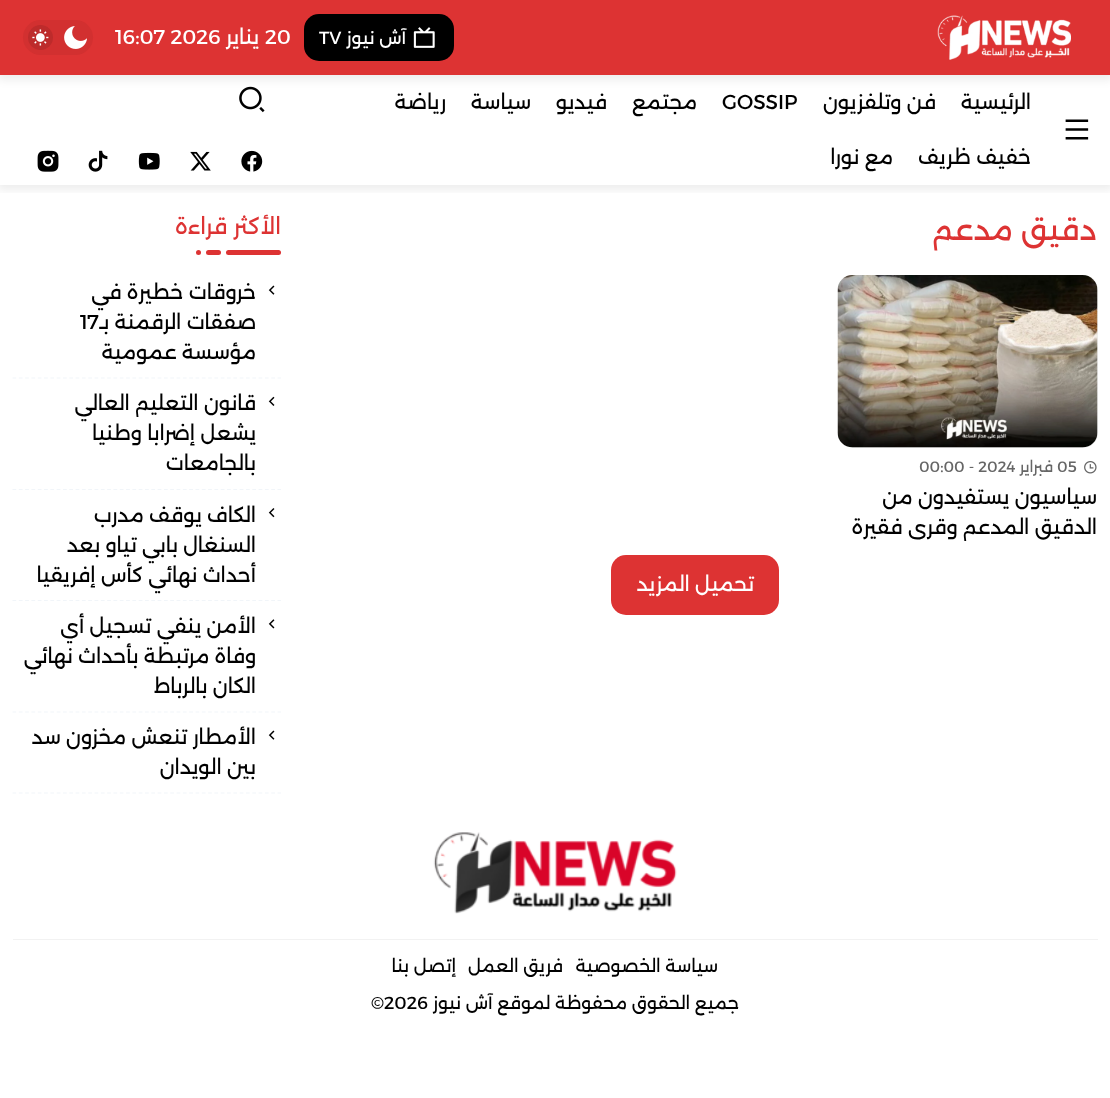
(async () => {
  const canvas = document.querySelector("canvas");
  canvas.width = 1110;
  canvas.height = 1098;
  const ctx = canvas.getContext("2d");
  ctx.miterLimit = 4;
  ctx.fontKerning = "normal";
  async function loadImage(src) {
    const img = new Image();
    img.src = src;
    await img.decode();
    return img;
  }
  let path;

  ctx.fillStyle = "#ffffff";
  ctx.fillRect(0, 0, 1110, 1098);
  ctx.save();
  ctx.beginPath();
  ctx.rect(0, 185, 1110, 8);
  ctx.clip();
  ctx.fillStyle = "rgba(0, 0, 0, 0.07)";
  ctx.filter = "blur(4.5px)";
  ctx.beginPath();
  ctx.rect(-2, 75, 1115, 115);
  ctx.fill();
  ctx.filter = "none";
  ctx.restore();
  ctx.drawImage(await loadImage("img/6.png"), 239, 86, 26, 27);
  ctx.fillStyle = "rgba(0, 0, 0, 0.07)";
  ctx.filter = "blur(4.5px)";
  ctx.beginPath();
  ctx.rect(-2, 0, 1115, 80);
  ctx.fill();
  ctx.filter = "none";
  ctx.fillStyle = "#dd3333";
  ctx.fillRect(0, 0, 1110, 75);
  ctx.drawImage(await loadImage("img/1.png"), 937, 15, 134, 45);
  ctx.fillStyle = "#000000";
  ctx.beginPath();
  ctx.roundRect(304, 14, 150, 47, 15);
  ctx.fill();
  ctx.drawImage(await loadImage("img/2.png"), 413, 27, 22, 21);
  ctx.fillStyle = "#d23030";
  ctx.beginPath();
  ctx.roundRect(23, 20, 70, 35, 17.5);
  ctx.fill();
  ctx.drawImage(await loadImage("img/3.png"), 64, 26, 23, 23);
  ctx.fillStyle = "#bd2b2b";
  ctx.beginPath();
  ctx.arc(40.5, 37.5, 12.5, 0, Math.PI * 2);
  ctx.fill();
  ctx.drawImage(await loadImage("img/4.png"), 32, 29, 17, 17);
  ctx.drawImage(await loadImage("img/5.png"), 1065, 119, 24, 21);
  ctx.drawImage(await loadImage("img/7.png"), 241, 150, 22, 22);
  ctx.drawImage(await loadImage("img/8.png"), 190, 151, 21, 20);
  ctx.drawImage(await loadImage("img/9.png"), 138, 152, 22, 18);
  ctx.drawImage(await loadImage("img/10.png"), 88, 150, 20, 22);
  ctx.drawImage(await loadImage("img/11.png"), 37, 150, 22, 22);
  ctx.fillStyle = "#eeeeee";
  ctx.beginPath();
  ctx.roundRect(838, 275, 260, 173, 15);
  ctx.fill();
  ctx.drawImage(await loadImage("img/12.png"), 837, 275, 261, 173);
  ctx.drawImage(await loadImage("img/13.png"), 1084, 461, 13, 13);
  ctx.fillStyle = "#dd3333";
  ctx.beginPath();
  ctx.roundRect(611, 555, 168, 60, 15);
  ctx.fill();
  ctx.beginPath();
  ctx.roundRect(206, 250, 15, 5, 2.5);
  ctx.fill();
  ctx.beginPath();
  ctx.arc(198.5, 252.5, 2.5, 0, Math.PI * 2);
  ctx.fill();
  ctx.beginPath();
  ctx.roundRect(226, 250, 55, 5, 2.5);
  ctx.fill();
  path = new Path2D("M12.5 378H281");
  ctx.strokeStyle = "#f1f5f9";
  ctx.lineWidth = 1.2;
  ctx.setLineDash([3.75, 2.56]);
  ctx.stroke(path);
  ctx.drawImage(await loadImage("img/14.png"), 268, 285, 7, 10);
  path = new Path2D("M12.5 489.5H281");
  ctx.stroke(path);
  ctx.drawImage(await loadImage("img/15.png"), 268, 396, 7, 10);
  path = new Path2D("M12.5 600.5H281");
  ctx.stroke(path);
  ctx.drawImage(await loadImage("img/16.png"), 268, 508, 7, 10);
  path = new Path2D("M12.5 712H281");
  ctx.stroke(path);
  ctx.drawImage(await loadImage("img/17.png"), 268, 619, 7, 10);
  path = new Path2D("M12.5 793H281");
  ctx.stroke(path);
  ctx.drawImage(await loadImage("img/14.png"), 268, 730, 7, 10);
  ctx.drawImage(await loadImage("img/18.png"), 433, 832, 244, 82);
  ctx.fillStyle = "#f2f2f2";
  ctx.fillRect(13, 939, 1085, 1);
  ctx.direction = "rtl";
  ctx.font = "17.5px Alexandria";
  ctx.fillStyle = "#ffffff";
  ctx.fillText("آش نيوز", 406, 44);
  ctx.direction = "ltr";
  ctx.fillText("TV", 319, 44);
  ctx.font = "20px Alexandria";
  ctx.fillText("20", 265, 44);
  ctx.direction = "rtl";
  ctx.fillText("يناير", 259, 44);
  ctx.direction = "ltr";
  ctx.fillText("16:07 2026", 115, 44);
  ctx.direction = "rtl";
  ctx.fillStyle = "#000000";
  ctx.fillText("الرئيسية", 1031, 109);
  ctx.fillText("فن وتلفزيون", 936, 109);
  ctx.direction = "ltr";
  ctx.fillText("GOSSIP", 722, 109);
  ctx.direction = "rtl";
  for (const [text, x, y] of [
    ["مجتمع", 697, 109],
    ["فيديو", 607, 109],
    ["سياسة", 531, 109],
    ["رياضة", 446, 109],
    ["خفيف ظريف", 1031, 164],
    ["مع نورا", 893, 164],
  ]) {
    ctx.fillText(text, x, y);
  }
  ctx.font = "30px Alexandria";
  ctx.fillStyle = "#dd3333";
  ctx.fillText("دقيق مدعم", 1097, 240);
  ctx.direction = "ltr";
  ctx.font = "15px Alexandria";
  ctx.fillStyle = "#666666";
  ctx.fillText("05", 1057, 472);
  ctx.direction = "rtl";
  ctx.fillText("فبراير", 1053, 472);
  ctx.direction = "ltr";
  ctx.fillText("00:00 - 2024", 919, 472);
  ctx.direction = "rtl";
  ctx.font = "20px Alexandria";
  ctx.fillStyle = "#000000";
  ctx.fillText("سياسيون يستفيدون من", 1097, 504);
  ctx.fillText("الدقيق المدعم وقرى فقيرة", 1097, 534);
  ctx.fillStyle = "#ffffff";
  ctx.fillText("تحميل المزيد", 754, 591);
  ctx.font = "22px Alexandria";
  ctx.fillStyle = "#dd3333";
  ctx.fillText("الأكثر قراءة", 281, 234);
  ctx.font = "20px Alexandria";
  ctx.fillStyle = "#000000";
  ctx.fillText("خروقات خطيرة في", 256, 299);
  ctx.direction = "ltr";
  ctx.fillText("17", 80, 329);
  ctx.direction = "rtl";
  for (const [text, x, y] of [
    ["صفقات الرقمنة بـ", 256, 329],
    ["مؤسسة عمومية", 256, 359],
    ["قانون التعليم العالي", 256, 410],
    ["يشعل إضرابا وطنيا", 256, 440],
    ["بالجامعات", 256, 470],
    ["الكاف يوقف مدرب", 256, 522],
    ["السنغال بابي تياو بعد", 256, 552],
    ["أحداث نهائي كأس إفريقيا", 256, 582],
    ["الأمن ينفي تسجيل أي", 256, 633],
    ["وفاة مرتبطة بأحداث نهائي", 256, 663],
    ["الكان بالرباط", 256, 693],
    ["الأمطار تنعش مخزون سد", 256, 744],
    ["بين الويدان", 256, 774],
  ]) {
    ctx.fillText(text, x, y);
  }
  ctx.font = "17.5px Alexandria";
  for (const [text, x, y] of [
    ["سياسة الخصوصية", 718, 972],
    ["فريق العمل", 563, 972],
    ["إتصل بنا", 456, 972],
    ["جميع الحقوق محفوظة لموقع آش نيوز", 739, 1009],
  ]) {
    ctx.fillText(text, x, y);
  }
  ctx.direction = "ltr";
  ctx.fillText("©2026", 371, 1009);
})();
